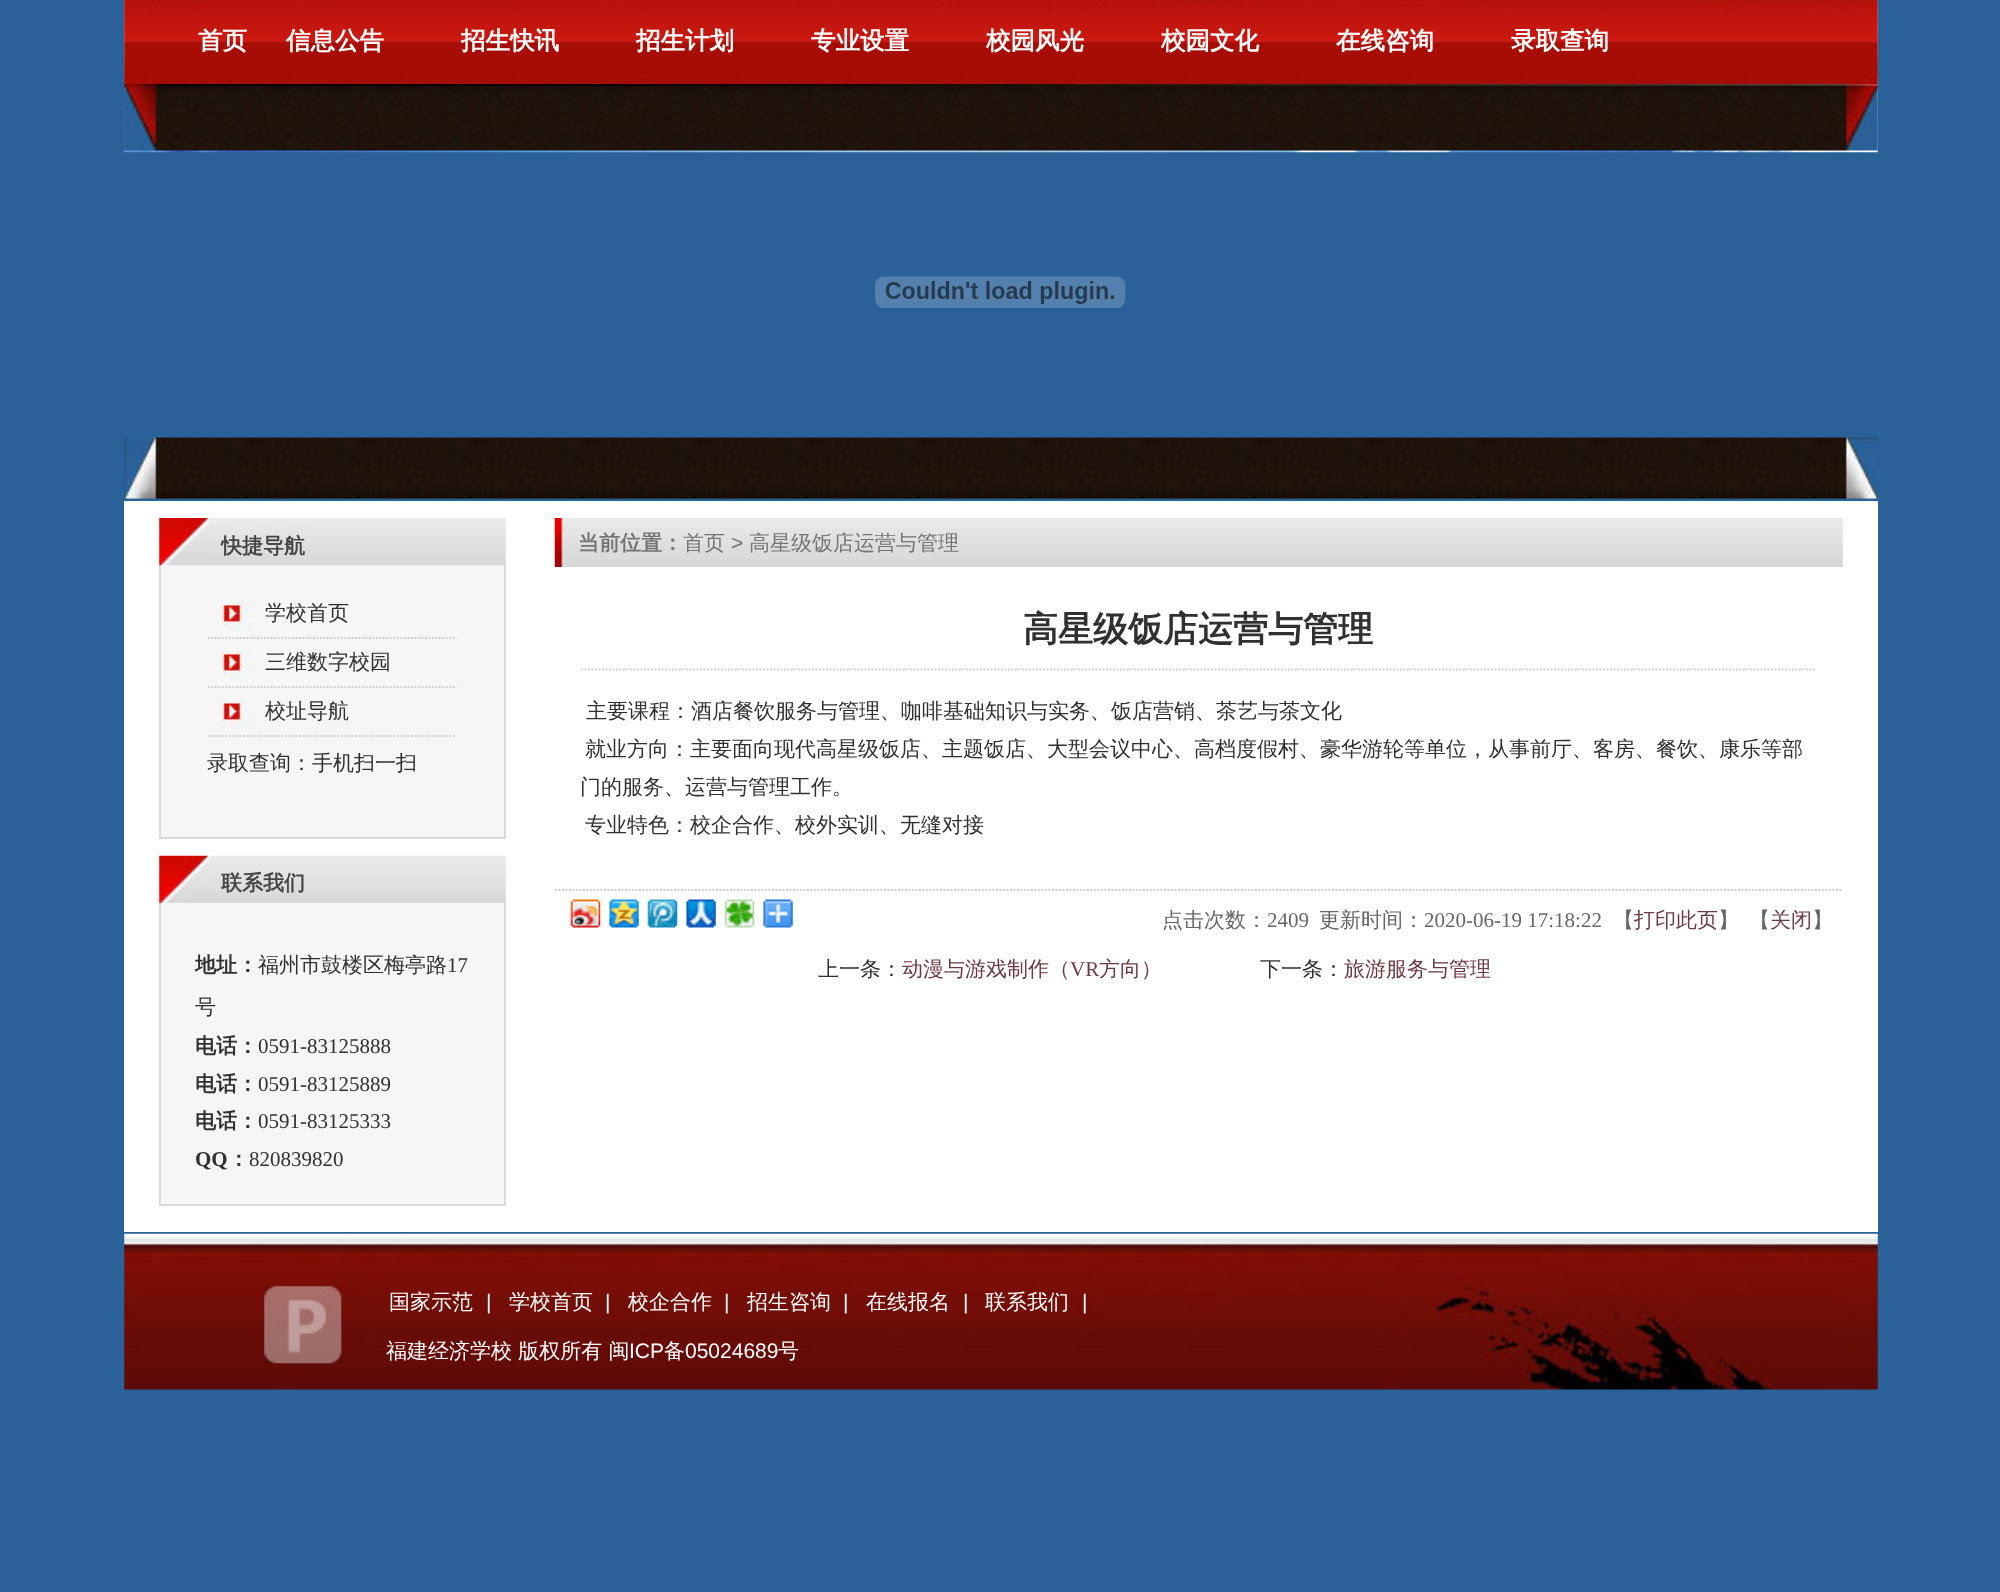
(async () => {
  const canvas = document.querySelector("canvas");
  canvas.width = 2000;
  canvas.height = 1592;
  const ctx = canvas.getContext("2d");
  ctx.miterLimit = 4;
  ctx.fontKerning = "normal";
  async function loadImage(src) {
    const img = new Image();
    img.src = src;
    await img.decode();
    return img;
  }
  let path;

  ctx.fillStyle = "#296198";
  ctx.fillRect(0, 0, 2000, 1592);
  ctx.drawImage(await loadImage("img/1.png"), 124, 0, 1754, 153);
  ctx.drawImage(await loadImage("img/2.png"), 124, 0, 1754, 84);
  ctx.drawImage(await loadImage("img/3.png"), 124, 84, 1754, 67);
  ctx.drawImage(await loadImage("img/4.png"), 124, 437, 1754, 62);
  ctx.drawImage(await loadImage("img/5.png"), 875, 276, 251, 32);
  for (const [x, y, w, h, color] of [
    [124, 501, 1754, 731, "#ffffff"],
    [161, 565, 343, 272, "#f6f6f6"],
    [504, 565, 2, 273, "#d9d9d9"],
    [159, 837, 347, 2, "#d9d9d9"],
    [159, 565, 2, 273, "#d9d9d9"],
  ]) {
    ctx.fillStyle = color;
    ctx.fillRect(x, y, w, h);
  }
  ctx.drawImage(await loadImage("img/6.png"), 159, 518, 347, 48);
  ctx.drawImage(await loadImage("img/7.png"), 222, 602, 29, 29);
  path = new Path2D("M208 638H457");
  ctx.strokeStyle = "#cccccc";
  ctx.lineWidth = 1.8;
  ctx.setLineDash([1.75, 1.75]);
  ctx.stroke(path);
  ctx.drawImage(await loadImage("img/7.png"), 222, 651, 29, 29);
  path = new Path2D("M208 687H457");
  ctx.stroke(path);
  ctx.drawImage(await loadImage("img/7.png"), 222, 700, 29, 29);
  path = new Path2D("M208 736H457");
  ctx.stroke(path);
  ctx.drawImage(await loadImage("img/8.png"), 159, 855, 347, 48);
  for (const [x, y, w, h, color] of [
    [161, 903, 343, 301, "#f6f6f6"],
    [504, 903, 2, 303, "#d9d9d9"],
    [159, 1204, 347, 2, "#d9d9d9"],
    [159, 903, 2, 303, "#d9d9d9"],
  ]) {
    ctx.fillStyle = color;
    ctx.fillRect(x, y, w, h);
  }
  ctx.drawImage(await loadImage("img/9.png"), 554, 518, 1289, 49);
  path = new Path2D("M581 669.5H1816.5");
  ctx.stroke(path);
  path = new Path2D("M555 890H1843");
  ctx.stroke(path);
  ctx.drawImage(await loadImage("img/10.png"), 570, 899, 31, 29);
  ctx.drawImage(await loadImage("img/11.png"), 609, 899, 30, 29);
  ctx.drawImage(await loadImage("img/12.png"), 647, 899, 31, 29);
  ctx.drawImage(await loadImage("img/13.png"), 686, 899, 30, 29);
  ctx.drawImage(await loadImage("img/14.png"), 724, 899, 31, 29);
  ctx.drawImage(await loadImage("img/15.png"), 763, 899, 30, 29);
  ctx.drawImage(await loadImage("img/16.png"), 124, 1233, 1754, 157);
  ctx.drawImage(await loadImage("img/17.png"), 264, 1286, 78, 78);
  ctx.font = "bold 24.5px WenQuanYi Zen Hei";
  ctx.fillStyle = "#ffffff";
  for (const [text, x, y] of [
    ["首页", 198, 49],
    ["信息公告", 286, 49],
    ["招生快讯", 461, 49],
    ["招生计划", 636, 49],
    ["专业设置", 811, 49],
    ["校园风光", 986, 49],
    ["校园文化", 1161, 49],
    ["在线咨询", 1336, 49],
    ["录取查询", 1511, 49],
  ]) {
    ctx.fillText(text, x, y);
  }
  ctx.font = "bold 21px WenQuanYi Zen Hei";
  ctx.fillStyle = "#464646";
  ctx.fillText("快捷导航", 221, 553);
  ctx.font = "500 21px WenQuanYi Zen Hei";
  ctx.fillStyle = "#303030";
  for (const [text, x, y] of [
    ["学校首页", 265, 620],
    ["三维数字校园", 265, 669],
    ["校址导航", 265, 718],
    ["录取查询：手机扫一扫", 207, 770],
  ]) {
    ctx.fillText(text, x, y);
  }
  ctx.font = "bold 21px WenQuanYi Zen Hei";
  ctx.fillStyle = "#464646";
  ctx.fillText("联系我们", 221, 890);
  ctx.fillStyle = "#303030";
  ctx.fillText("地址：", 195, 972);
  ctx.font = "500 21px WenQuanYi Zen Hei";
  ctx.fillText("福州市鼓楼区梅亭路", 258, 972);
  ctx.font = "21px Liberation Serif";
  ctx.fillText("17", 447, 972);
  ctx.font = "500 21px WenQuanYi Zen Hei";
  ctx.fillText("号", 195, 1014);
  ctx.font = "bold 21px WenQuanYi Zen Hei";
  ctx.fillText("电话：", 195, 1053);
  ctx.font = "21px Liberation Serif";
  ctx.fillText("0591-83125888", 258, 1053);
  ctx.font = "bold 21px WenQuanYi Zen Hei";
  ctx.fillText("电话：", 195, 1091);
  ctx.font = "21px Liberation Serif";
  ctx.fillText("0591-83125889", 258, 1091);
  ctx.font = "bold 21px WenQuanYi Zen Hei";
  ctx.fillText("电话：", 195, 1128);
  ctx.font = "21px Liberation Serif";
  ctx.fillText("0591-83125333", 258, 1128);
  ctx.font = "bold 21px Liberation Serif";
  ctx.fillText("QQ", 195, 1166);
  ctx.font = "bold 21px WenQuanYi Zen Hei";
  ctx.fillText("：", 228, 1166);
  ctx.font = "21px Liberation Serif";
  ctx.fillText("820839820", 249, 1166);
  ctx.font = "bold 21px WenQuanYi Zen Hei";
  ctx.fillStyle = "#747474";
  ctx.fillText("当前位置：", 578, 550);
  ctx.font = "500 21px WenQuanYi Zen Hei";
  ctx.fillText("首页", 683, 550);
  ctx.font = "21px Liberation Sans";
  ctx.fillText(">", 731, 550);
  ctx.font = "500 21px WenQuanYi Zen Hei";
  ctx.fillText("高星级饭店运营与管理", 749, 550);
  ctx.font = "bold 35px WenQuanYi Zen Hei";
  ctx.fillStyle = "#303030";
  ctx.fillText("高星级饭店运营与管理", 1023, 641);
  ctx.font = "500 21px WenQuanYi Zen Hei";
  for (const [text, x, y] of [
    ["主要课程：酒店餐饮服务与管理、咖啡基础知识与实务、饭店营销、茶艺与茶文化", 586, 718],
    ["就业方向：主要面向现代高星级饭店、主题饭店、大型会议中心、高档度假村、豪华游轮等单位，从事前厅、客房、餐饮、康乐等部", 585, 756],
    ["门的服务、运营与管理工作。", 580, 794],
    ["专业特色：校企合作、校外实训、无缝对接", 585, 832],
  ]) {
    ctx.fillText(text, x, y);
  }
  ctx.fillStyle = "#666666";
  ctx.fillText("点击次数：", 1162, 927);
  ctx.font = "21px Liberation Serif";
  ctx.fillText("2409", 1267, 927);
  ctx.font = "500 21px WenQuanYi Zen Hei";
  ctx.fillText("更新时间：", 1319, 927);
  ctx.font = "21px Liberation Serif";
  ctx.fillText("2020-06-19 17:18:22", 1424, 927);
  ctx.font = "500 21px WenQuanYi Zen Hei";
  ctx.fillText("【", 1613, 927);
  ctx.fillStyle = "#6c3a43";
  ctx.fillText("打印此页", 1634, 927);
  ctx.fillStyle = "#666666";
  ctx.fillText("】", 1718, 927);
  ctx.fillText("【", 1749, 927);
  ctx.fillStyle = "#6c3a43";
  ctx.fillText("关闭", 1770, 927);
  ctx.fillStyle = "#666666";
  ctx.fillText("】", 1812, 927);
  ctx.fillStyle = "#303030";
  ctx.fillText("上一条：", 818, 976);
  ctx.fillStyle = "#6c3a43";
  ctx.fillText("动漫与游戏制作（", 902, 976);
  ctx.font = "21px Liberation Serif";
  ctx.fillText("VR", 1070, 976);
  ctx.font = "500 21px WenQuanYi Zen Hei";
  ctx.fillText("方向）", 1099, 976);
  ctx.fillStyle = "#303030";
  ctx.fillText("下一条：", 1260, 976);
  ctx.fillStyle = "#6c3a43";
  ctx.fillText("旅游服务与管理", 1344, 976);
  ctx.fillStyle = "#ffffff";
  ctx.fillText("国家示范", 389, 1309);
  ctx.font = "21px Liberation Sans";
  ctx.fillText("|", 486, 1309);
  ctx.font = "500 21px WenQuanYi Zen Hei";
  ctx.fillText("学校首页", 509, 1309);
  ctx.font = "21px Liberation Sans";
  ctx.fillText("|", 605, 1309);
  ctx.font = "500 21px WenQuanYi Zen Hei";
  ctx.fillText("校企合作", 628, 1309);
  ctx.font = "21px Liberation Sans";
  ctx.fillText("|", 724, 1309);
  ctx.font = "500 21px WenQuanYi Zen Hei";
  ctx.fillText("招生咨询", 747, 1309);
  ctx.font = "21px Liberation Sans";
  ctx.fillText("|", 843, 1309);
  ctx.font = "500 21px WenQuanYi Zen Hei";
  ctx.fillText("在线报名", 866, 1309);
  ctx.font = "21px Liberation Sans";
  ctx.fillText("|", 963, 1309);
  ctx.font = "500 21px WenQuanYi Zen Hei";
  ctx.fillText("联系我们", 985, 1309);
  ctx.font = "21px Liberation Sans";
  ctx.fillText("|", 1082, 1309);
  ctx.font = "500 21px WenQuanYi Zen Hei";
  ctx.fillText("福建经济学校 版权所有 闽", 386, 1358);
  ctx.font = "21px Liberation Sans";
  ctx.fillText("ICP", 629, 1358);
  ctx.font = "500 21px WenQuanYi Zen Hei";
  ctx.fillText("备", 664, 1358);
  ctx.font = "21px Liberation Sans";
  ctx.fillText("05024689", 685, 1358);
  ctx.font = "500 21px WenQuanYi Zen Hei";
  ctx.fillText("号", 778, 1358);
})();
